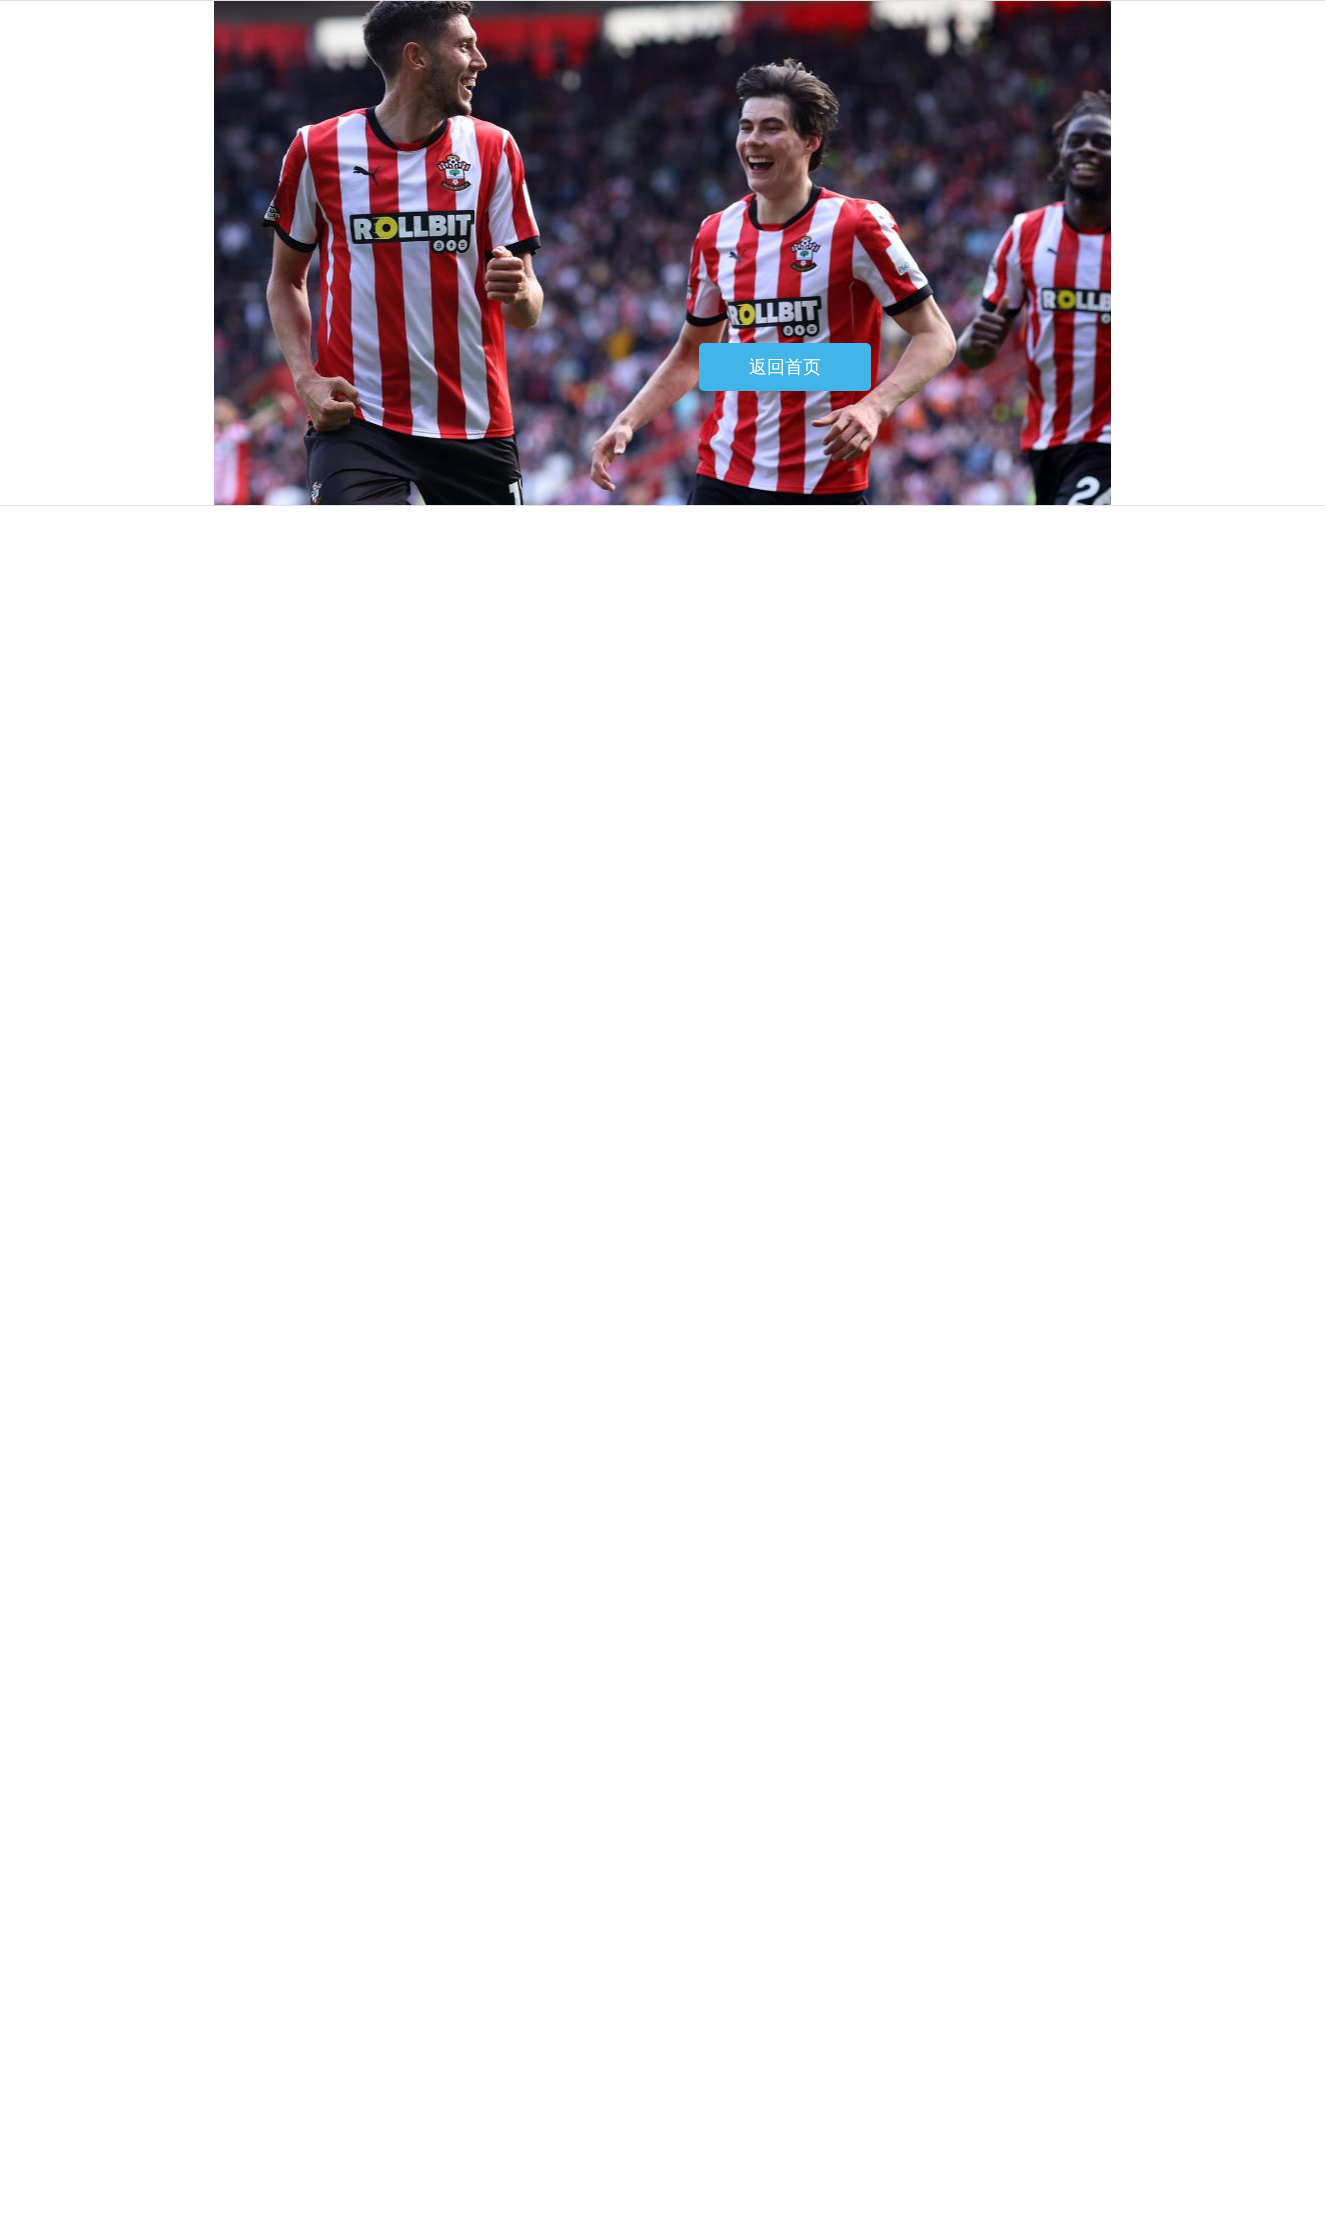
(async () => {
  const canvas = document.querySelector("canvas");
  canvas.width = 1325;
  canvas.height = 2231;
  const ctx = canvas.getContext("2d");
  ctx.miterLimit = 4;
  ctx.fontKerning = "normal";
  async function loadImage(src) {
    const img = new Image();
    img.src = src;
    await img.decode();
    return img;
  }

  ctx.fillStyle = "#ffffff";
  ctx.fillRect(0, 0, 1325, 2231);
  ctx.fillStyle = "#e0e0e0";
  ctx.fillRect(0, 0, 1325, 1);
  ctx.fillRect(0, 505, 1325, 1);
  ctx.drawImage(await loadImage("img/1.png"), 214, 1, 897, 504);
  ctx.fillStyle = "#43b4e8";
  ctx.beginPath();
  ctx.roundRect(699, 343, 172, 48, 5);
  ctx.fill();
  ctx.font = "500 18px WenQuanYi Zen Hei";
  ctx.fillStyle = "#ffffff";
  ctx.fillText("返回首页", 749, 373);
})();
